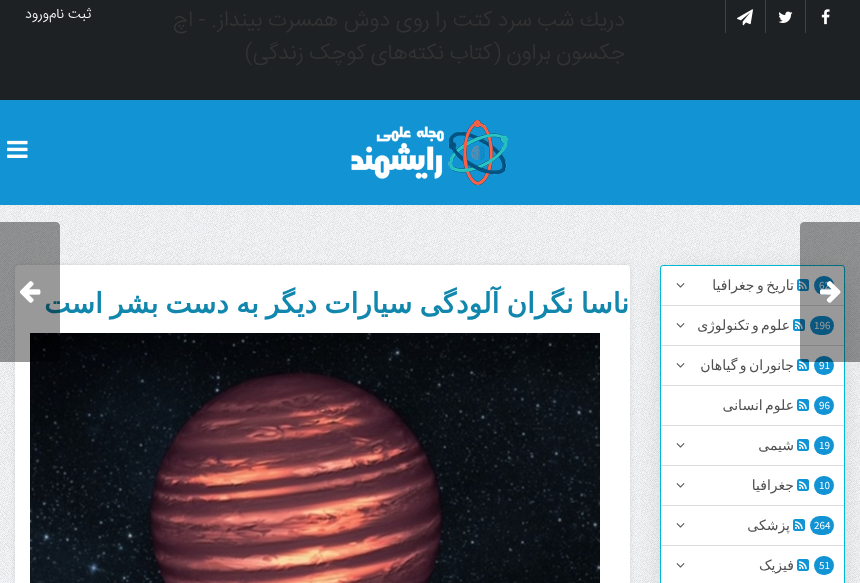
(async () => {
  const canvas = document.querySelector("canvas");
  canvas.width = 860;
  canvas.height = 583;
  const ctx = canvas.getContext("2d");
  ctx.miterLimit = 4;
  ctx.fontKerning = "normal";
  async function loadImage(src) {
    const img = new Image();
    img.src = src;
    await img.decode();
    return img;
  }
  let path;

  ctx.fillStyle = "#ffffff";
  ctx.fillRect(0, 0, 860, 583);
  ctx.drawImage(await loadImage("img/1.png"), 0, 205, 860, 378);
  ctx.fillStyle = "#1e2123";
  ctx.fillRect(0, 0, 860, 100);
  ctx.fillStyle = "#404244";
  ctx.fillRect(805, 0, 1, 33);
  ctx.drawImage(await loadImage("img/2.png"), 821, 9, 9, 16);
  ctx.fillRect(765, 0, 1, 33);
  ctx.drawImage(await loadImage("img/3.png"), 778, 11, 15, 12);
  ctx.fillRect(725, 0, 1, 33);
  ctx.drawImage(await loadImage("img/4.png"), 737, 9, 16, 17);
  ctx.fillStyle = "#1293d4";
  ctx.fillRect(0, 100, 860, 105);
  ctx.drawImage(await loadImage("img/5.png"), 351, 120, 158, 65);
  ctx.drawImage(await loadImage("img/6.png"), 7, 140, 21, 18);
  ctx.fillStyle = "rgba(0, 0, 0, 0.1)";
  ctx.filter = "blur(10px)";
  ctx.beginPath();
  ctx.roundRect(660, 270, 185, 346, 3);
  ctx.fill();
  ctx.filter = "none";
  ctx.fillStyle = "#ffffff";
  ctx.beginPath();
  ctx.roundRect(660.5, 265.5, 184, 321, 2.5);
  ctx.fill();
  ctx.strokeStyle = "#00b8d4";
  ctx.stroke();
  ctx.fillStyle = "#dddddd";
  ctx.fillRect(661, 305, 183, 1);
  ctx.fillStyle = "#1293d4";
  ctx.beginPath();
  ctx.roundRect(814, 276, 20, 19, 9.5);
  ctx.fill();
  ctx.drawImage(await loadImage("img/7.png"), 797, 279, 12, 12);
  ctx.drawImage(await loadImage("img/8.png"), 676, 283, 9, 5);
  ctx.fillStyle = "#dddddd";
  ctx.fillRect(661, 345, 183, 1);
  ctx.fillStyle = "#1293d4";
  ctx.beginPath();
  ctx.roundRect(810, 316, 24, 19, 9.5);
  ctx.fill();
  ctx.drawImage(await loadImage("img/7.png"), 793, 319, 12, 12);
  ctx.drawImage(await loadImage("img/8.png"), 676, 323, 9, 5);
  ctx.fillStyle = "#dddddd";
  ctx.fillRect(661, 385, 183, 1);
  ctx.fillStyle = "#1293d4";
  ctx.beginPath();
  ctx.roundRect(814, 356, 20, 19, 9.5);
  ctx.fill();
  ctx.drawImage(await loadImage("img/7.png"), 797, 359, 12, 12);
  ctx.drawImage(await loadImage("img/8.png"), 676, 363, 9, 5);
  ctx.fillStyle = "#dddddd";
  ctx.fillRect(661, 425, 183, 1);
  ctx.fillStyle = "#1293d4";
  ctx.beginPath();
  ctx.roundRect(814, 396, 20, 19, 9.5);
  ctx.fill();
  ctx.drawImage(await loadImage("img/7.png"), 797, 399, 12, 12);
  ctx.fillStyle = "#dddddd";
  ctx.fillRect(661, 465, 183, 1);
  ctx.fillStyle = "#1293d4";
  ctx.beginPath();
  ctx.roundRect(814, 436, 20, 19, 9.5);
  ctx.fill();
  ctx.drawImage(await loadImage("img/7.png"), 797, 439, 12, 12);
  ctx.drawImage(await loadImage("img/8.png"), 676, 443, 9, 5);
  ctx.fillStyle = "#dddddd";
  ctx.fillRect(661, 505, 183, 1);
  ctx.fillStyle = "#1293d4";
  ctx.beginPath();
  ctx.roundRect(814, 476, 20, 19, 9.5);
  ctx.fill();
  ctx.drawImage(await loadImage("img/7.png"), 797, 479, 12, 12);
  ctx.drawImage(await loadImage("img/8.png"), 676, 483, 9, 5);
  ctx.fillStyle = "#dddddd";
  ctx.fillRect(661, 545, 183, 1);
  ctx.fillStyle = "#1293d4";
  ctx.beginPath();
  ctx.roundRect(810, 516, 24, 19, 9.5);
  ctx.fill();
  ctx.drawImage(await loadImage("img/7.png"), 793, 519, 12, 12);
  ctx.drawImage(await loadImage("img/8.png"), 676, 523, 9, 5);
  ctx.beginPath();
  ctx.roundRect(814, 556, 20, 19, 9.5);
  ctx.fill();
  ctx.drawImage(await loadImage("img/7.png"), 797, 559, 12, 12);
  ctx.drawImage(await loadImage("img/8.png"), 676, 563, 9, 5);
  ctx.fillStyle = "rgba(0, 0, 0, 0.1)";
  ctx.filter = "blur(2.5px)";
  ctx.beginPath();
  ctx.roundRect(15, 265, 615, 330, 4);
  ctx.fill();
  ctx.filter = "none";
  ctx.fillStyle = "#ffffff";
  ctx.beginPath();
  ctx.roundRect(15, 265, 615, 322, 4);
  ctx.fill();
  ctx.drawImage(await loadImage("img/11.png"), 30, 333, 570, 250);
  ctx.letterSpacing = "0.1px";
  ctx.wordSpacing = "-0.5px";
  ctx.direction = "rtl";
  ctx.font = "300 22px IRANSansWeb";
  ctx.fillStyle = "#333333";
  ctx.fillText("دریك شب سرد كتت را روی دوش همسرت بینداز. - اچ", 625, 26);
  ctx.wordSpacing = "-0.75px";
  ctx.fillText("جکسون براون (کتاب نکته‌های کوچک زندگی)", 625, 59);
  ctx.letterSpacing = "0px";
  ctx.wordSpacing = "0px";
  ctx.font = "300 14px IRANSansWeb";
  ctx.fillStyle = "#ffffff";
  ctx.fillText("ثبت‌ نام", 91, 18);
  ctx.fillText("ورود", 49, 18);
  ctx.direction = "ltr";
  ctx.font = "11px Source Sans Pro";
  ctx.fillText("62", 819, 289);
  ctx.wordSpacing = "-2px";
  ctx.direction = "rtl";
  ctx.font = "14px DejaVu Sans";
  ctx.fillStyle = "#504e4e";
  ctx.fillText("تاریخ و جغرافیا", 794, 290);
  ctx.wordSpacing = "0px";
  ctx.direction = "ltr";
  ctx.font = "11px Source Sans Pro";
  ctx.fillStyle = "#ffffff";
  ctx.fillText("196", 814, 329);
  ctx.wordSpacing = "-2px";
  ctx.direction = "rtl";
  ctx.font = "14px DejaVu Sans";
  ctx.fillStyle = "#504e4e";
  ctx.fillText("علوم و تکنولوژی", 790, 330);
  ctx.wordSpacing = "0px";
  ctx.direction = "ltr";
  ctx.font = "11px Source Sans Pro";
  ctx.fillStyle = "#ffffff";
  ctx.fillText("91", 819, 369);
  ctx.wordSpacing = "-2px";
  ctx.direction = "rtl";
  ctx.font = "14px DejaVu Sans";
  ctx.fillStyle = "#504e4e";
  ctx.fillText("جانوران و گیاهان", 794, 370);
  ctx.wordSpacing = "0px";
  ctx.direction = "ltr";
  ctx.font = "11px Source Sans Pro";
  ctx.fillStyle = "#ffffff";
  ctx.fillText("96", 819, 409);
  ctx.wordSpacing = "-2px";
  ctx.direction = "rtl";
  ctx.font = "14px DejaVu Sans";
  ctx.fillStyle = "#504e4e";
  ctx.fillText("علوم انسانی", 794, 410);
  ctx.wordSpacing = "0px";
  ctx.direction = "ltr";
  ctx.font = "11px Source Sans Pro";
  ctx.fillStyle = "#ffffff";
  ctx.fillText("19", 819, 449);
  ctx.direction = "rtl";
  ctx.font = "14px DejaVu Sans";
  ctx.fillStyle = "#504e4e";
  ctx.fillText("شیمی", 794, 450);
  ctx.direction = "ltr";
  ctx.font = "11px Source Sans Pro";
  ctx.fillStyle = "#ffffff";
  ctx.fillText("10", 819, 489);
  ctx.direction = "rtl";
  ctx.font = "14px DejaVu Sans";
  ctx.fillStyle = "#504e4e";
  ctx.fillText("جغرافیا", 794, 490);
  ctx.direction = "ltr";
  ctx.font = "11px Source Sans Pro";
  ctx.fillStyle = "#ffffff";
  ctx.fillText("264", 814, 529);
  ctx.direction = "rtl";
  ctx.font = "14px DejaVu Sans";
  ctx.fillStyle = "#504e4e";
  ctx.fillText("پزشکی", 790, 530);
  ctx.direction = "ltr";
  ctx.font = "11px Source Sans Pro";
  ctx.fillStyle = "#ffffff";
  ctx.fillText("51", 819, 569);
  ctx.direction = "rtl";
  ctx.font = "14px DejaVu Sans";
  ctx.fillStyle = "#504e4e";
  ctx.fillText("فیزیک", 794, 570);
  ctx.fillStyle = "rgba(0, 0, 0, 0.4)";
  path = new Path2D("M804 222H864V362H804C802 362 800 360 800 358V226C800 224 802 222 804 222Z");
  ctx.fill(path);
  ctx.drawImage(await loadImage("img/9.png"), 820, 281, 21, 22);
  ctx.wordSpacing = "-1.75px";
  ctx.font = "bold 28px DejaVu Sans";
  ctx.fillStyle = "#1287ad";
  ctx.fillText("ناسا نگران آلودگی سیارات دیگر به دست بشر است", 629, 313);
  ctx.fillStyle = "rgba(0, 0, 0, 0.4)";
  path = new Path2D("M-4 222H56C58 222 60 224 60 226V358C60 360 58 362 56 362H-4Z");
  ctx.fill(path);
  ctx.drawImage(await loadImage("img/10.png"), 20, 281, 21, 22);
})();
